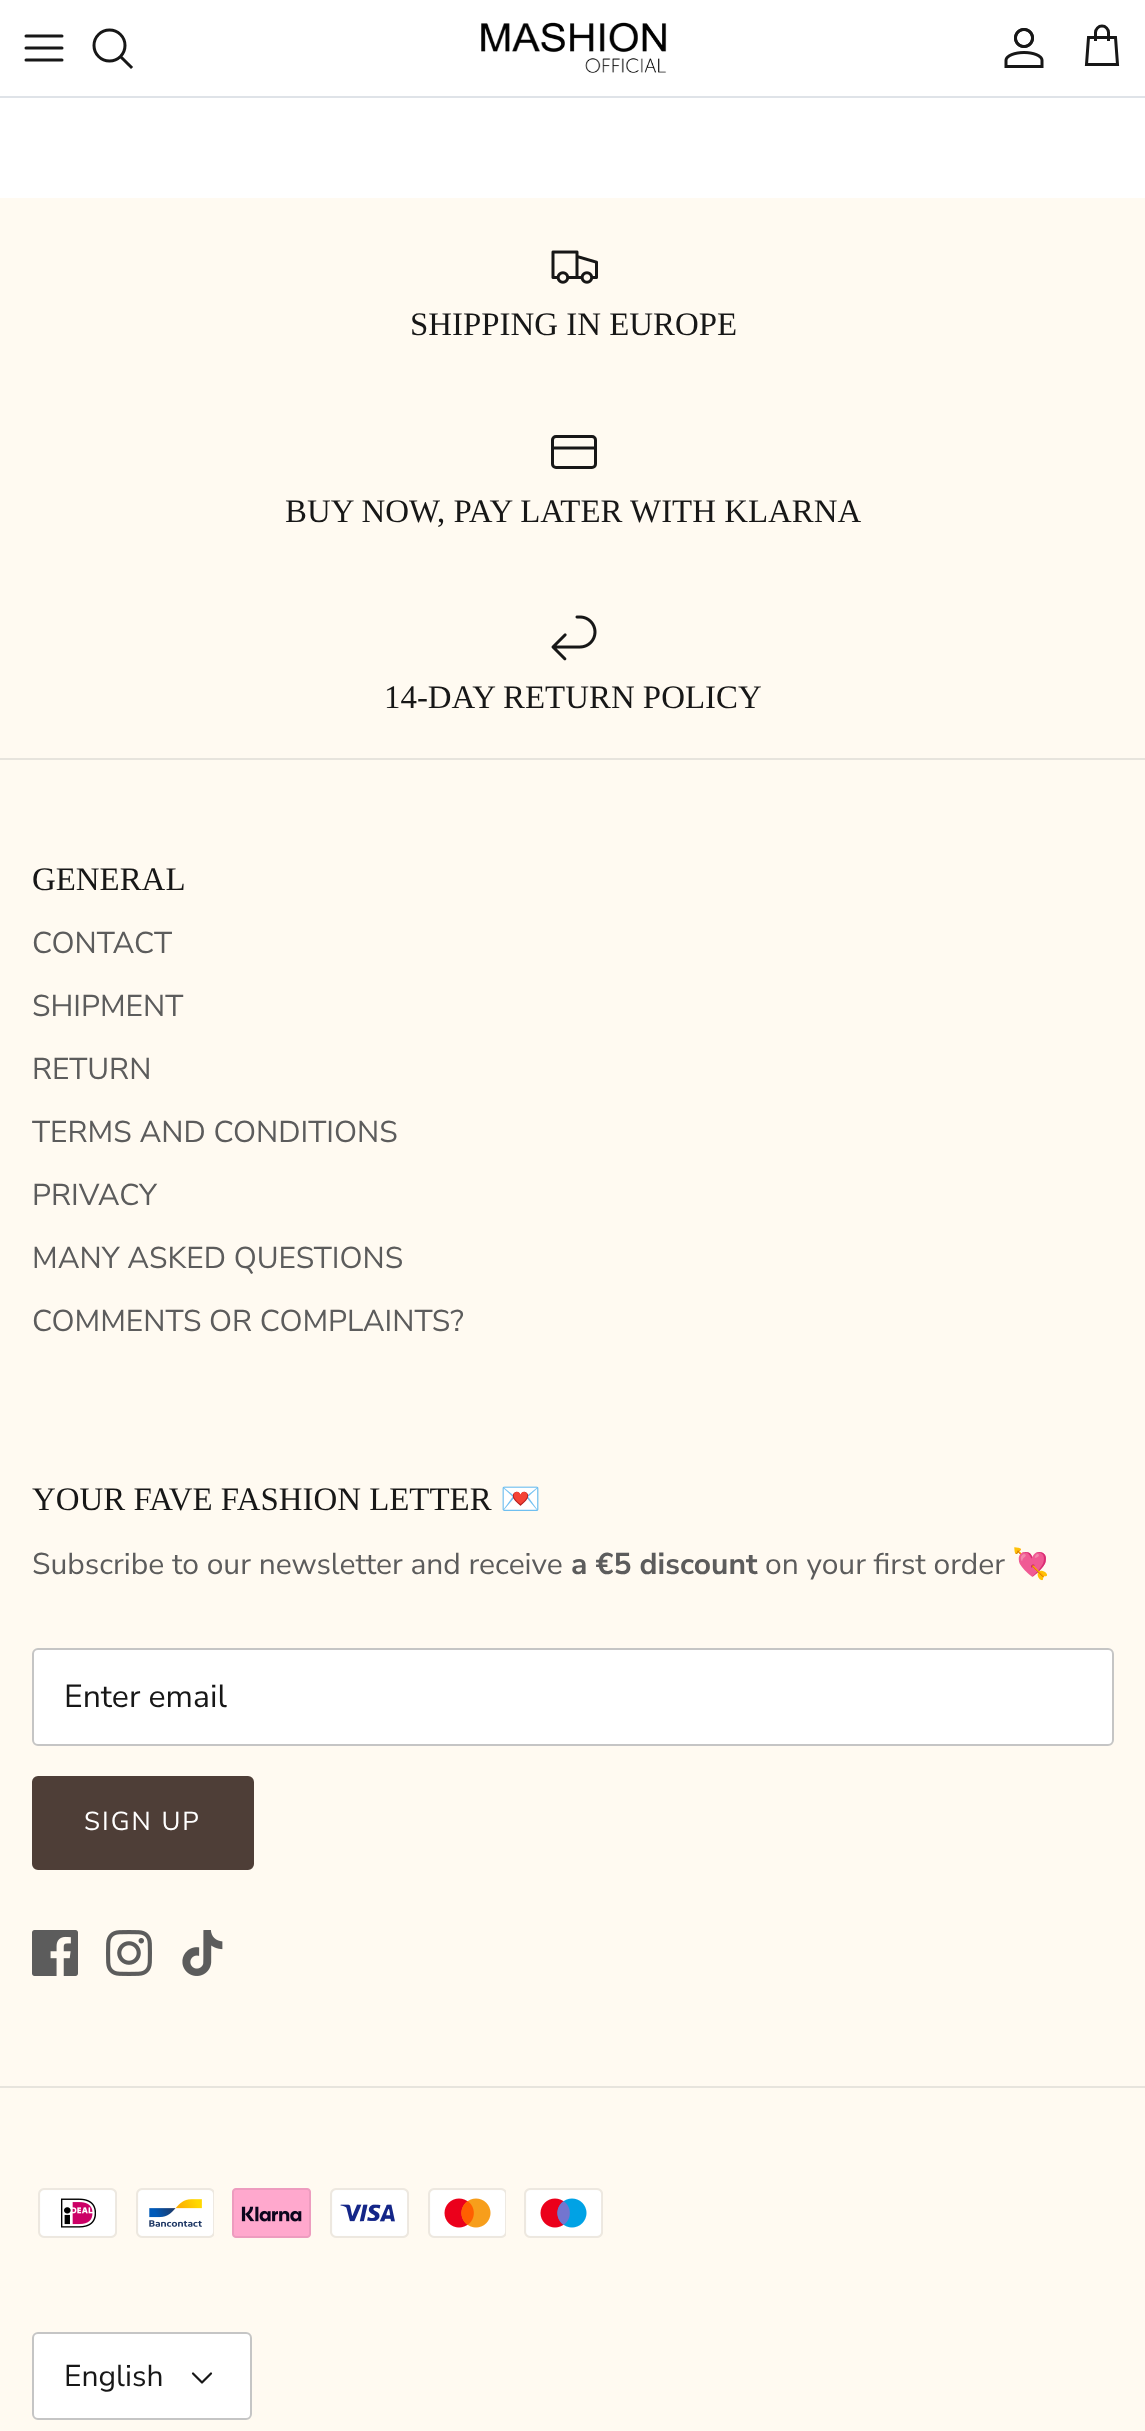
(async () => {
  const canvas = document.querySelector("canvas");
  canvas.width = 1145;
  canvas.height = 2431;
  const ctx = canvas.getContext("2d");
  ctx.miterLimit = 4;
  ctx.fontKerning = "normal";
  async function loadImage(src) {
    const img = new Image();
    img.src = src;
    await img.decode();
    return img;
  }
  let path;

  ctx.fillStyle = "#ffffff";
  ctx.fillRect(0, 0, 1145, 2431);
  ctx.fillStyle = "#dfe3e8";
  ctx.fillRect(0, 96, 1145, 2);
  path = new Path2D("M26 48H62M26 36H62M26 60H62");
  ctx.strokeStyle = "#171717";
  ctx.lineWidth = 3;
  ctx.lineCap = "round";
  ctx.lineJoin = "round";
  ctx.stroke(path);
  ctx.beginPath();
  ctx.arc(109.5, 45.5, 15.5, 0, Math.PI * 2);
  ctx.stroke();
  path = new Path2D("M122 58L131 67");
  ctx.lineCap = "square";
  ctx.lineJoin = "miter";
  ctx.stroke(path);
  ctx.drawImage(await loadImage("img/1.png"), 481, 22, 186, 51);
  ctx.drawImage(await loadImage("img/2.png"), 1004, 28, 40, 40);
  path = new Path2D("M1108.5 41V32.5C1108.5 29 1105.5 26 1102 26C1098.5 26 1095.5 29 1095.5 32.5V41M1088.5 37.5H1115.5L1117.5 64.5H1086.5Z");
  ctx.lineCap = "butt";
  ctx.stroke(path);
  ctx.fillStyle = "#fffaf1";
  ctx.fillRect(0, 198, 1145, 2233);
  ctx.drawImage(await loadImage("img/3.png"), 551, 250, 47, 34);
  ctx.beginPath();
  ctx.roundRect(552.5, 436.5, 43, 31, 3.5);
  ctx.stroke();
  path = new Path2D("M553 448H595.5");
  ctx.stroke(path);
  ctx.drawImage(await loadImage("img/4.png"), 551, 615, 46, 46);
  ctx.fillStyle = "#e7e4dd";
  ctx.fillRect(0, 758, 1145, 2);
  ctx.fillStyle = "#ffffff";
  ctx.beginPath();
  ctx.roundRect(33, 1649, 1080, 96, 5);
  ctx.fill();
  ctx.strokeStyle = "#c5c5c5";
  ctx.lineWidth = 2;
  ctx.stroke();
  ctx.fillStyle = "#4e3e37";
  ctx.beginPath();
  ctx.roundRect(33, 1777, 220, 92, 5);
  ctx.fill();
  ctx.strokeStyle = "#4e3e37";
  ctx.stroke();
  ctx.drawImage(await loadImage("img/5.png"), 32, 1930, 46, 46);
  ctx.drawImage(await loadImage("img/6.png"), 106, 1930, 46, 46);
  ctx.drawImage(await loadImage("img/7.png"), 182, 1930, 41, 46);
  ctx.fillStyle = "#e7e4dd";
  ctx.fillRect(0, 2086, 1145, 2);
  ctx.drawImage(await loadImage("img/8.png"), 38, 2188, 79, 50);
  ctx.drawImage(await loadImage("img/9.png"), 136, 2188, 78, 50);
  ctx.drawImage(await loadImage("img/10.png"), 232, 2188, 79, 50);
  ctx.drawImage(await loadImage("img/11.png"), 330, 2188, 79, 50);
  ctx.drawImage(await loadImage("img/12.png"), 428, 2188, 78, 50);
  ctx.drawImage(await loadImage("img/13.png"), 524, 2188, 79, 50);
  ctx.fillStyle = "#ffffff";
  ctx.beginPath();
  ctx.roundRect(33, 2333, 218, 86, 5);
  ctx.fill();
  ctx.strokeStyle = "#c5c5c5";
  ctx.stroke();
  path = new Path2D("M193 2373.5L202 2382.5L211 2373.5");
  ctx.strokeStyle = "#171717";
  ctx.lineWidth = 2.2;
  ctx.lineCap = "round";
  ctx.lineJoin = "round";
  ctx.stroke(path);
  ctx.font = "32.9px Liberation Serif";
  ctx.fillStyle = "#171717";
  for (const [text, x, y] of [
    ["SHIPPING IN EUROPE", 410, 335],
    ["BUY NOW, PAY LATER WITH KLARNA", 285, 522],
    ["14-DAY RETURN POLICY", 384, 708],
    ["GENERAL", 32, 890],
  ]) {
    ctx.fillText(text, x, y);
  }
  ctx.font = "30px Nunito Sans";
  ctx.fillStyle = "#5c5c5c";
  for (const [text, x, y] of [
    ["CONTACT", 32, 953],
    ["SHIPMENT", 32, 1016],
    ["RETURN", 32, 1079],
    ["TERMS AND CONDITIONS", 32, 1142],
    ["PRIVACY", 32, 1205],
    ["MANY ASKED QUESTIONS", 32, 1268],
    ["COMMENTS OR COMPLAINTS?", 32, 1331],
  ]) {
    ctx.fillText(text, x, y);
  }
  ctx.font = "32.9px Liberation Serif";
  ctx.fillStyle = "#171717";
  ctx.fillText("YOUR FAVE FASHION LETTER", 32, 1510);
  ctx.font = "32.9px Noto Color Emoji";
  ctx.fillText("💌", 500, 1510);
  ctx.font = "30px Nunito Sans";
  ctx.fillStyle = "#5c5c5c";
  ctx.fillText("Subscribe to our newsletter and receive", 32, 1574);
  ctx.font = "bold 30px Nunito Sans";
  ctx.fillText("a €5 discount", 571, 1574);
  ctx.font = "30px Nunito Sans";
  ctx.fillText("on your first order", 765, 1574);
  ctx.font = "30px Noto Color Emoji";
  ctx.fillText("💘", 1012, 1574);
  ctx.font = "32px Nunito Sans";
  ctx.fillStyle = "#171717";
  ctx.fillText("Enter email", 64, 1707);
  ctx.letterSpacing = "2px";
  ctx.font = "26px Nunito Sans";
  ctx.fillStyle = "#ffffff";
  ctx.fillText("SIGN UP", 84, 1830);
  ctx.letterSpacing = "0px";
  ctx.font = "30px Nunito Sans";
  ctx.fillStyle = "#171717";
  ctx.fillText("English", 64, 2386);
})();
